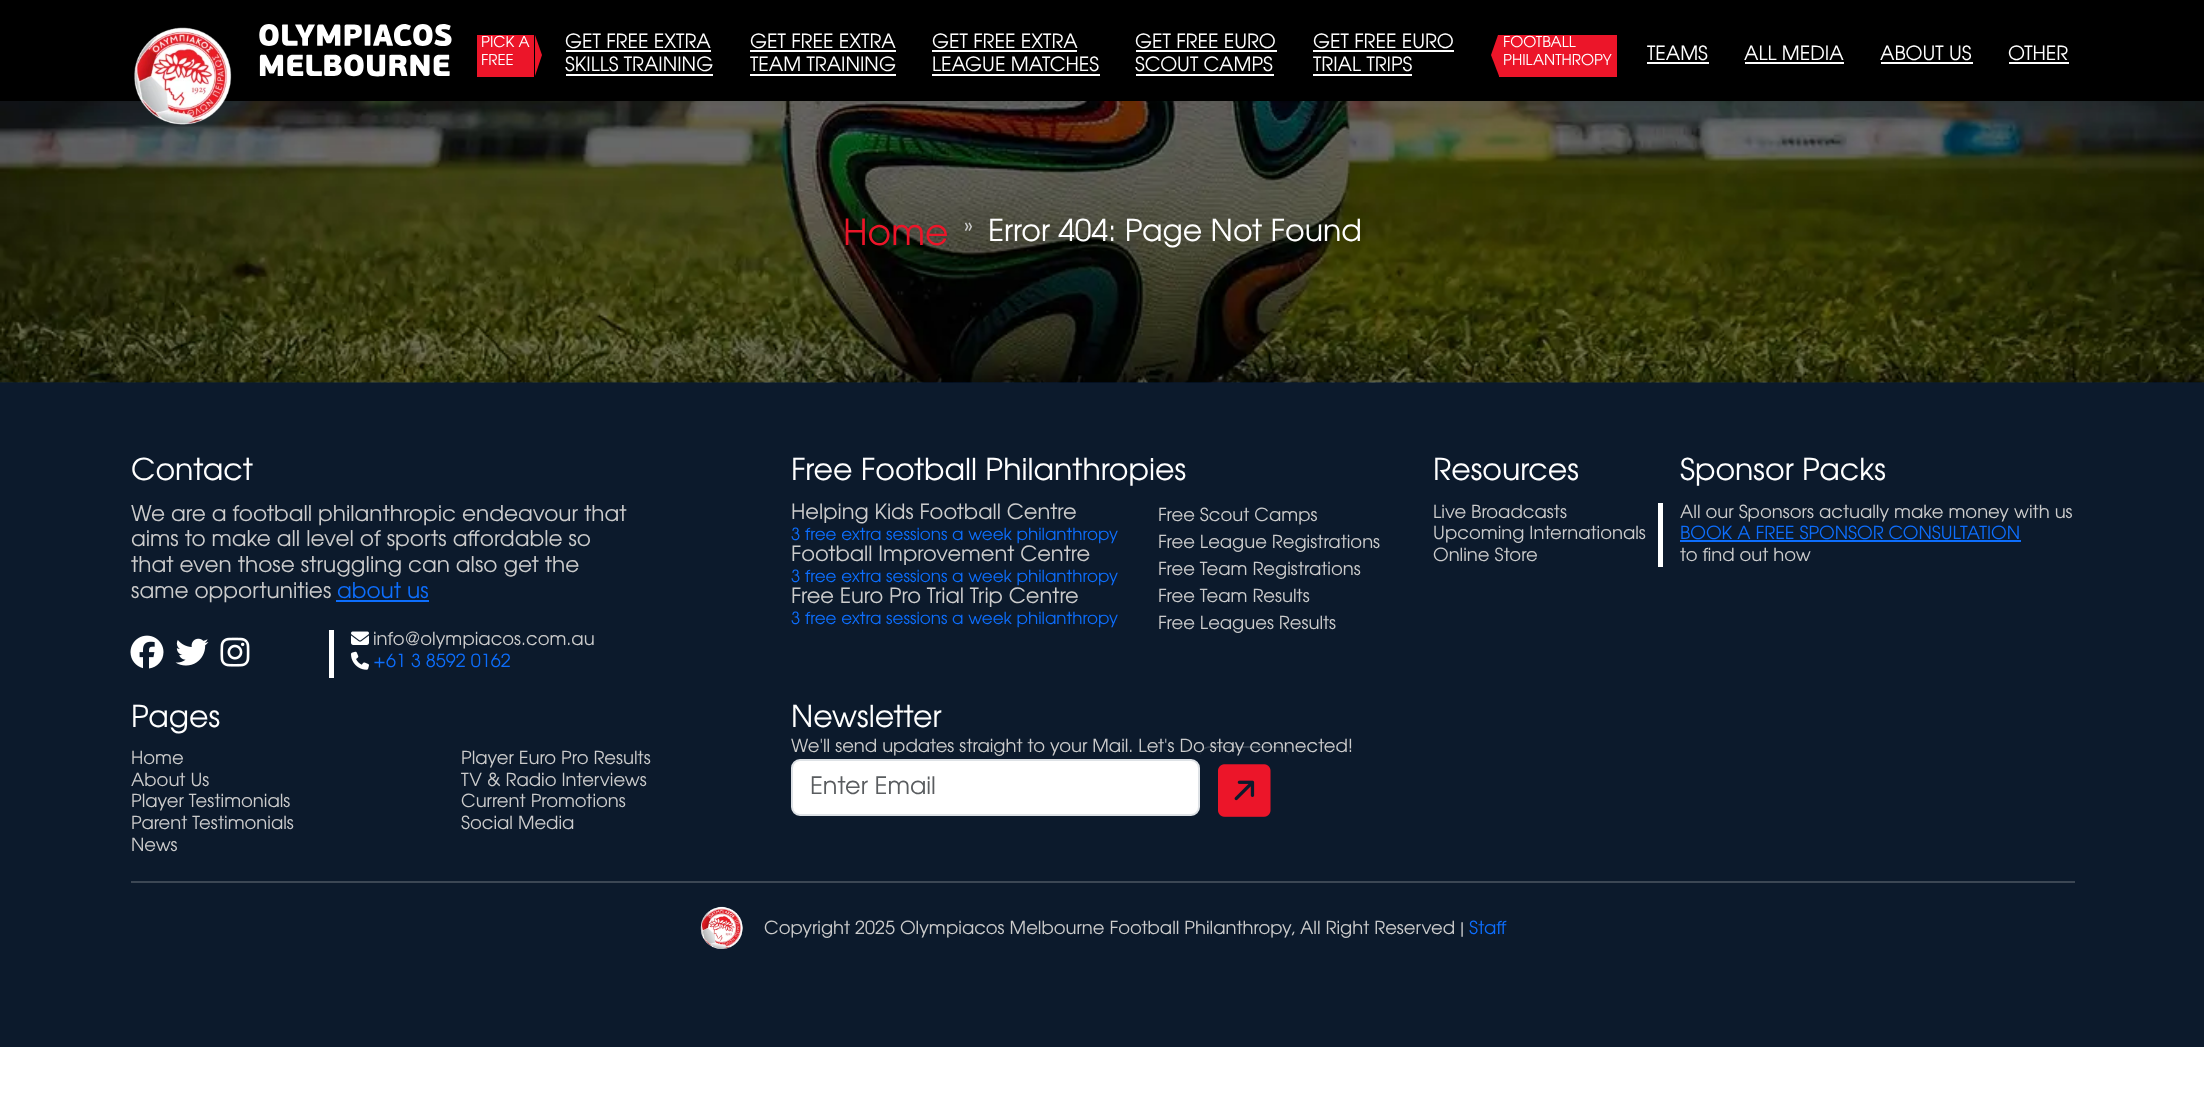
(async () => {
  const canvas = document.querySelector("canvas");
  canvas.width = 2204;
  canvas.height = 1093;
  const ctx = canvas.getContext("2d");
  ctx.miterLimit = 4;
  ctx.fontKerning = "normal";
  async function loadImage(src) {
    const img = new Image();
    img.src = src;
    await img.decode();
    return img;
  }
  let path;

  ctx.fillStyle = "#ffffff";
  ctx.fillRect(0, 0, 2204, 1093);
  ctx.fillStyle = "#071f40";
  ctx.fillRect(0, 382, 2204, 1);
  ctx.drawImage(await loadImage("img/3.png"), 0, 101, 2204, 282);
  ctx.fillStyle = "rgba(0, 0, 0, 0.9)";
  ctx.filter = "blur(77px)";
  ctx.beginPath();
  ctx.rect(6, -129, 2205, 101);
  ctx.fill();
  ctx.filter = "none";
  ctx.fillStyle = "#000000";
  ctx.fillRect(0, 0, 2204, 101);
  ctx.drawImage(await loadImage("img/1.png"), 134, 27, 98, 98);
  ctx.drawImage(await loadImage("img/2.png"), 259, 24, 193, 53);
  ctx.fillStyle = "#ec1529";
  ctx.fillRect(477, 35, 57, 42);
  path = new Path2D("M535 76V35L542 55Z");
  ctx.fill(path);
  for (const [x, y, w, h, color] of [
    [566, 50, 145, 2, "#ffffff"],
    [566, 74, 147, 2, "#ffffff"],
    [750, 50, 146, 2, "#ffffff"],
    [750, 74, 146, 2, "#ffffff"],
    [932, 50, 145, 2, "#ffffff"],
    [932, 74, 168, 2, "#ffffff"],
    [1136, 50, 141, 2, "#ffffff"],
    [1136, 74, 138, 2, "#ffffff"],
    [1313, 50, 141, 2, "#ffffff"],
    [1313, 74, 99, 2, "#ffffff"],
    [1499, 35, 118, 42, "#ec1529"],
  ]) {
    ctx.fillStyle = color;
    ctx.fillRect(x, y, w, h);
  }
  path = new Path2D("M1499 35H1498L1491 55L1499 76Z");
  ctx.fill(path);
  for (const [x, y, w, h, color] of [
    [1647, 62, 62, 2, "#ffffff"],
    [1745, 62, 99, 2, "#ffffff"],
    [1881, 62, 92, 2, "#ffffff"],
    [2009, 62, 60, 2, "#ffffff"],
    [0, 383, 2204, 664, "#0c1a2c"],
    [336, 600, 93, 2, "#0d6efd"],
    [329, 630, 5, 48, "#ffffff"],
  ]) {
    ctx.fillStyle = color;
    ctx.fillRect(x, y, w, h);
  }
  ctx.drawImage(await loadImage("img/4.png"), 130, 635, 34, 34);
  ctx.drawImage(await loadImage("img/5.png"), 175, 638, 34, 28);
  ctx.drawImage(await loadImage("img/6.png"), 220, 637, 30, 30);
  ctx.drawImage(await loadImage("img/7.png"), 351, 631, 18, 14);
  ctx.drawImage(await loadImage("img/8.png"), 351, 651, 18, 19);
  ctx.fillRect(1658, 503, 5, 64);
  ctx.fillStyle = "#0d6efd";
  ctx.fillRect(1680, 540, 341, 2);
  ctx.fillStyle = "#ffffff";
  ctx.beginPath();
  ctx.roundRect(792, 760, 407, 55, 8);
  ctx.fill();
  ctx.strokeStyle = "#dee2e6";
  ctx.lineWidth = 2;
  ctx.stroke();
  ctx.drawImage(await loadImage("img/9.png"), 1218, 764, 53, 53);
  ctx.fillStyle = "#3c4754";
  ctx.fillRect(131, 881, 1944, 2);
  ctx.drawImage(await loadImage("img/10.png"), 700, 906, 43, 43);
  ctx.font = "15px TeX Gyre Adventor";
  ctx.fillStyle = "#ffffff";
  ctx.fillText("PICK A", 481, 47);
  ctx.fillText("FREE", 481, 65);
  ctx.font = "19.5px TeX Gyre Adventor";
  for (const [text, x, y] of [
    ["GET FREE EXTRA", 565, 48],
    ["SKILLS TRAINING", 565, 71],
    ["GET FREE EXTRA", 750, 48],
    ["TEAM TRAINING", 750, 71],
    ["GET FREE EXTRA", 932, 48],
    ["LEAGUE MATCHES", 932, 71],
    ["GET FREE EURO", 1135, 48],
    ["SCOUT CAMPS", 1135, 71],
    ["GET FREE EURO", 1313, 48],
    ["TRIAL TRIPS", 1313, 71],
  ]) {
    ctx.fillText(text, x, y);
  }
  ctx.font = "15px TeX Gyre Adventor";
  ctx.fillText("FOOTBALL", 1503, 47);
  ctx.fillText("PHILANTHROPY", 1503, 65);
  ctx.font = "19.5px TeX Gyre Adventor";
  for (const [text, x, y] of [
    ["TEAMS", 1647, 60],
    ["ALL MEDIA", 1744, 60],
    ["ABOUT US", 1880, 60],
    ["OTHER", 2008, 60],
  ]) {
    ctx.fillText(text, x, y);
  }
  ctx.font = "36px TeX Gyre Adventor";
  ctx.fillStyle = "#ec1529";
  ctx.fillText("Home", 843, 245);
  ctx.font = "21px TeX Gyre Adventor";
  ctx.fillStyle = "#cccccc";
  ctx.fillText("»", 964, 233);
  ctx.font = "30px TeX Gyre Adventor";
  ctx.fillStyle = "#ffffff";
  ctx.fillText("Error 404: Page Not Found", 988, 241);
  ctx.fillText("Contact", 131, 480);
  ctx.font = "21.6px TeX Gyre Adventor";
  ctx.fillStyle = "#cccccc";
  for (const [text, x, y] of [
    ["We are a football philanthropic endeavour that", 131, 521],
    ["aims to make all level of sports affordable so", 131, 546],
    ["that even those struggling can also get the", 131, 572],
    ["same opportunities", 131, 598],
  ]) {
    ctx.fillText(text, x, y);
  }
  ctx.fillStyle = "#0d6efd";
  ctx.fillText("about us", 337, 598);
  ctx.font = "18px TeX Gyre Adventor";
  ctx.fillStyle = "#cccccc";
  ctx.fillText("info@olympiacos.com.au", 373, 645);
  ctx.fillStyle = "#0d6efd";
  ctx.fillText("+61 3 8592 0162", 373, 667);
  ctx.font = "30px TeX Gyre Adventor";
  ctx.fillStyle = "#ffffff";
  ctx.fillText("Free Football Philanthropies", 791, 480);
  ctx.font = "21px TeX Gyre Adventor";
  ctx.fillStyle = "#cccccc";
  ctx.fillText("Helping Kids Football Centre", 791, 519);
  ctx.font = "16.75px TeX Gyre Adventor";
  ctx.fillStyle = "#0d6efd";
  ctx.fillText("3 free extra sessions a week philanthropy", 791, 540);
  ctx.font = "21px TeX Gyre Adventor";
  ctx.fillStyle = "#cccccc";
  ctx.fillText("Football Improvement Centre", 791, 561);
  ctx.font = "16.75px TeX Gyre Adventor";
  ctx.fillStyle = "#0d6efd";
  ctx.fillText("3 free extra sessions a week philanthropy", 791, 582);
  ctx.font = "21px TeX Gyre Adventor";
  ctx.fillStyle = "#cccccc";
  ctx.fillText("Free Euro Pro Trial Trip Centre", 791, 603);
  ctx.font = "16.75px TeX Gyre Adventor";
  ctx.fillStyle = "#0d6efd";
  ctx.fillText("3 free extra sessions a week philanthropy", 791, 624);
  ctx.font = "18px TeX Gyre Adventor";
  ctx.fillStyle = "#cccccc";
  for (const [text, x, y] of [
    ["Free Scout Camps", 1158, 521],
    ["Free League Registrations", 1158, 548],
    ["Free Team Registrations", 1158, 575],
    ["Free Team Results", 1158, 602],
    ["Free Leagues Results", 1158, 629],
  ]) {
    ctx.fillText(text, x, y);
  }
  ctx.font = "30px TeX Gyre Adventor";
  ctx.fillStyle = "#ffffff";
  ctx.fillText("Resources", 1433, 480);
  ctx.font = "18px TeX Gyre Adventor";
  ctx.fillStyle = "#cccccc";
  for (const [text, x, y] of [
    ["Live Broadcasts", 1433, 518],
    ["Upcoming Internationals", 1433, 539],
    ["Online Store", 1433, 561],
  ]) {
    ctx.fillText(text, x, y);
  }
  ctx.font = "30px TeX Gyre Adventor";
  ctx.fillStyle = "#ffffff";
  ctx.fillText("Sponsor Packs", 1680, 480);
  ctx.font = "18px TeX Gyre Adventor";
  ctx.fillStyle = "#cccccc";
  ctx.fillText("All our Sponsors actually make money with us", 1680, 518);
  ctx.fillStyle = "#0d6efd";
  ctx.fillText("BOOK A FREE SPONSOR CONSULTATION", 1680, 539);
  ctx.fillStyle = "#cccccc";
  ctx.fillText("to find out how", 1680, 561);
  ctx.font = "30px TeX Gyre Adventor";
  ctx.fillStyle = "#ffffff";
  ctx.fillText("Pages", 131, 727);
  ctx.font = "18px TeX Gyre Adventor";
  ctx.fillStyle = "#cccccc";
  for (const [text, x, y] of [
    ["Home", 131, 764],
    ["About Us", 131, 786],
    ["Player Testimonials", 131, 807],
    ["Parent Testimonials", 131, 829],
    ["News", 131, 851],
    ["Player Euro Pro Results", 461, 764],
    ["TV & Radio Interviews", 461, 786],
    ["Current Promotions", 461, 807],
    ["Social Media", 461, 829],
  ]) {
    ctx.fillText(text, x, y);
  }
  ctx.font = "30px TeX Gyre Adventor";
  ctx.fillStyle = "#ffffff";
  ctx.fillText("Newsletter", 791, 727);
  ctx.font = "18px TeX Gyre Adventor";
  ctx.fillStyle = "#cccccc";
  ctx.fillText("We'll send updates straight to your Mail. Let's Do stay connected!", 791, 752);
  ctx.font = "24px TeX Gyre Adventor";
  ctx.fillStyle = "#595c5f";
  ctx.fillText("Enter Email", 810, 794);
  ctx.fillStyle = "rgba(255, 255, 255, 0.15)";
  path = new Path2D("M1209 748H1280C1285 748 1289 752 1289 757C1289 744 1279 746 1268 746H1221C1210 746 1200 744 1200 757C1200 752 1204 748 1209 748Z");
  ctx.fill(path);
  ctx.font = "18px TeX Gyre Adventor";
  ctx.fillStyle = "#cccccc";
  ctx.fillText("Copyright 2025 Olympiacos Melbourne Football Philanthropy, All Right Reserved |", 764, 934);
  ctx.fillStyle = "#0d6efd";
  ctx.fillText("Staff", 1469, 934);
})();
